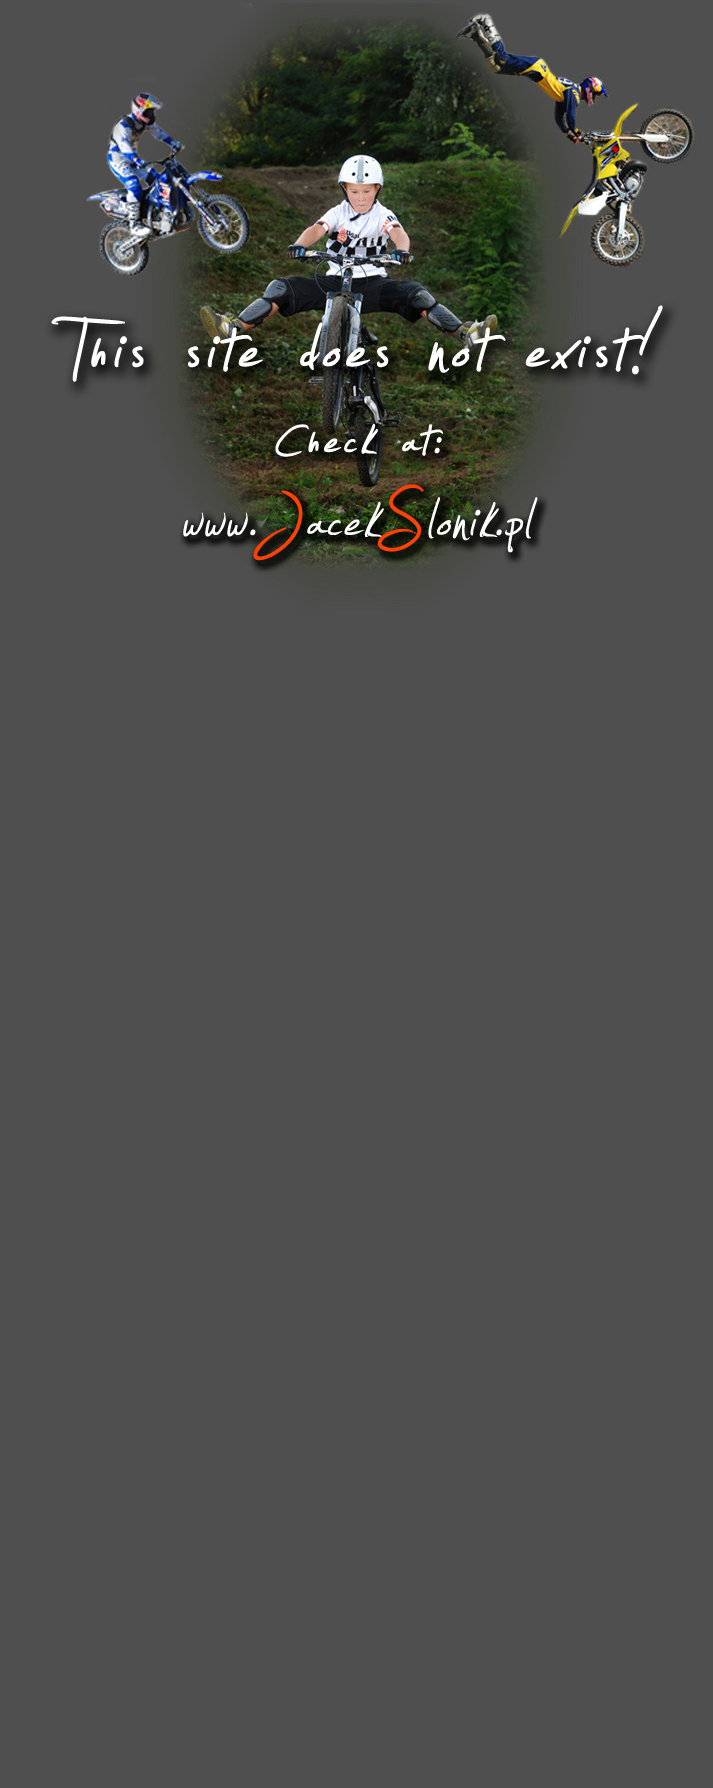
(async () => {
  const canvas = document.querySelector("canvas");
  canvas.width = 713;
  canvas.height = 1788;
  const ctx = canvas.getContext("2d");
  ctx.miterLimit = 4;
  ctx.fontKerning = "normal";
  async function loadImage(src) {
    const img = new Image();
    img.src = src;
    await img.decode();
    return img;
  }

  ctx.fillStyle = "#4f4f4f";
  ctx.fillRect(0, 0, 713, 1788);
  ctx.drawImage(await loadImage("img/1.png"), 45, 3, 656, 608);
})();
